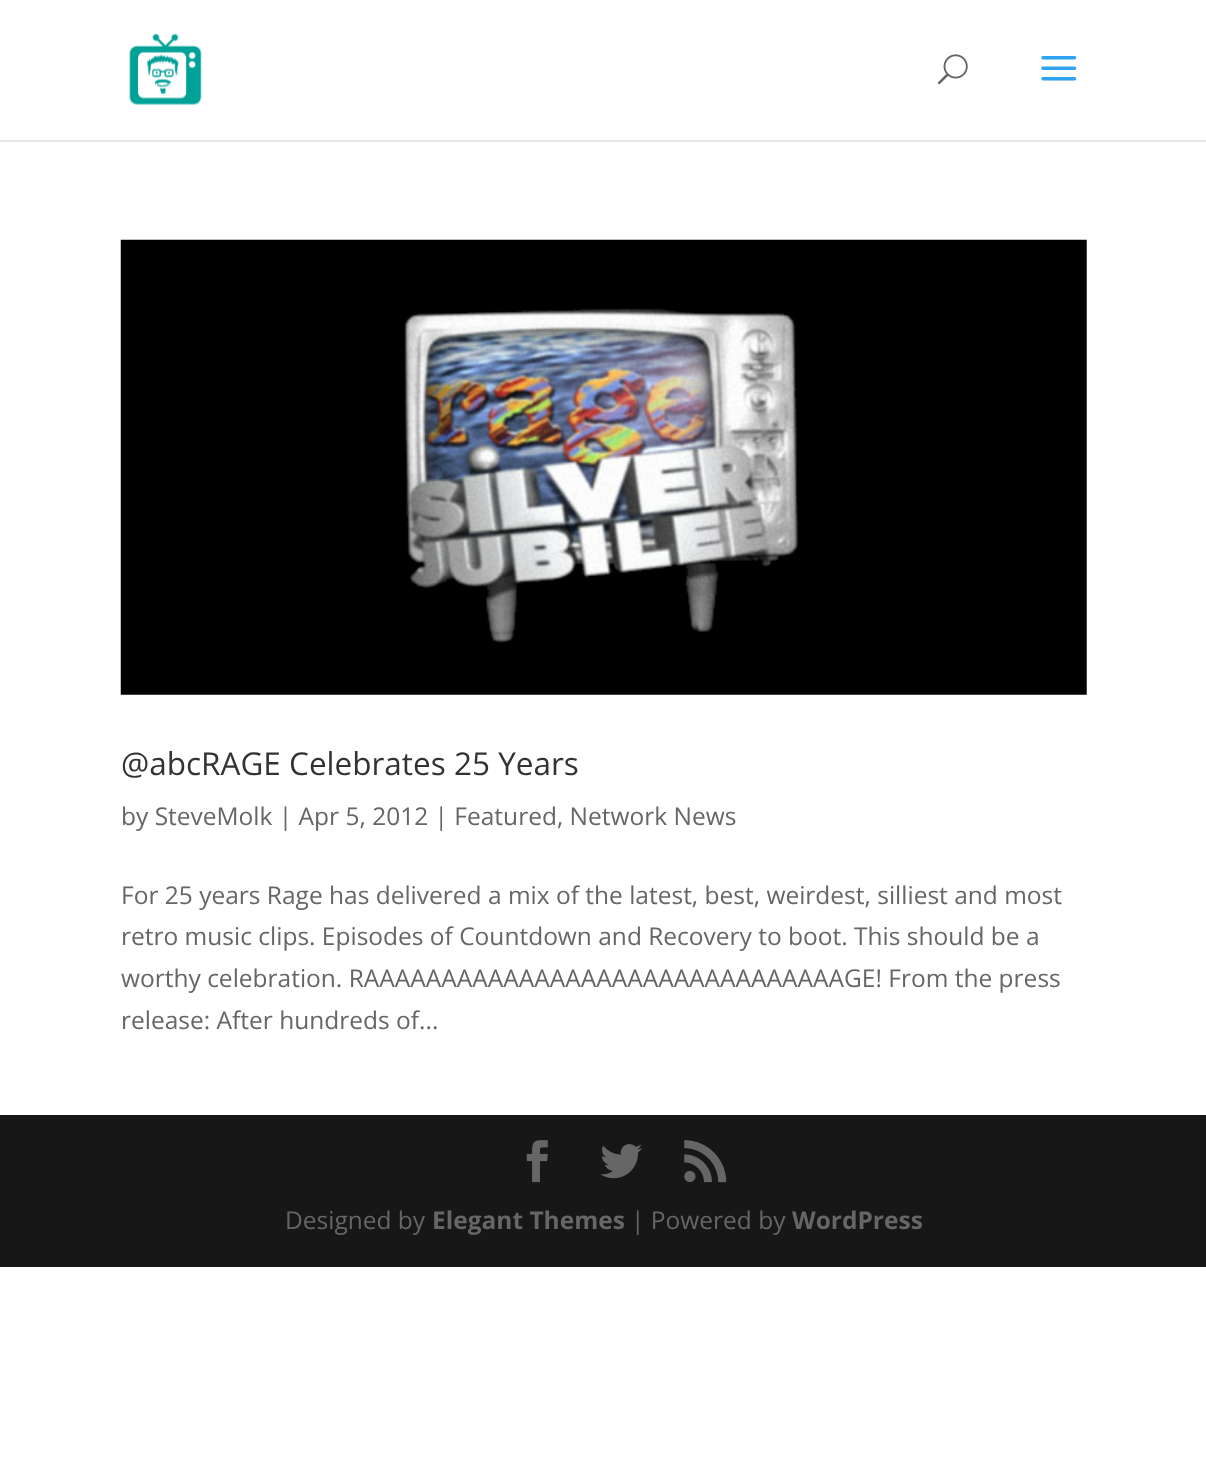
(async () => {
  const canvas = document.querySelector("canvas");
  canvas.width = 1206;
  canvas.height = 1473;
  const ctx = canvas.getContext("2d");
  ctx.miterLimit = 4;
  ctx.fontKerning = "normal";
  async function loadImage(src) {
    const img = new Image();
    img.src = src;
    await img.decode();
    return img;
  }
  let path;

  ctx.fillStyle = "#ffffff";
  ctx.fillRect(0, 0, 1206, 1473);
  ctx.fillStyle = "#e6e6e6";
  path = new Path2D("M0 140V142H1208V2V140Z");
  ctx.fill(path);
  ctx.drawImage(await loadImage("img/1.png"), 129, 33, 73, 72);
  ctx.drawImage(await loadImage("img/2.png"), 937, 54, 31, 31);
  ctx.drawImage(await loadImage("img/3.png"), 1041, 56, 36, 25);
  ctx.drawImage(await loadImage("img/4.png"), 120, 239, 967, 456);
  ctx.fillStyle = "#171717";
  ctx.fillRect(0, 1115, 1206, 152);
  ctx.drawImage(await loadImage("img/5.png"), 526, 1140, 22, 43);
  ctx.drawImage(await loadImage("img/6.png"), 600, 1144, 42, 35);
  ctx.drawImage(await loadImage("img/7.png"), 684, 1140, 43, 43);
  ctx.font = "31.5px Open Sans";
  ctx.fillStyle = "#333333";
  ctx.fillText("@abcRAGE Celebrates 25 Years", 121, 775);
  ctx.font = "24.5px Open Sans";
  ctx.fillStyle = "#666666";
  for (const [text, x, y] of [
    ["by SteveMolk | Apr 5, 2012 | Featured, Network News", 121, 825],
    ["For 25 years Rage has delivered a mix of the latest, best, weirdest, silliest and most", 121, 904],
    ["retro music clips. Episodes of Countdown and Recovery to boot. This should be a", 121, 945],
    ["worthy celebration. RAAAAAAAAAAAAAAAAAAAAAAAAAAAAAAAGE! From the press", 121, 987],
    ["release: After hundreds of...", 121, 1029],
    ["Designed by", 285, 1229],
  ]) {
    ctx.fillText(text, x, y);
  }
  ctx.font = "bold 24.5px Open Sans";
  ctx.fillText("Elegant Themes", 432, 1229);
  ctx.font = "24.5px Open Sans";
  ctx.fillText("| Powered by", 631, 1229);
  ctx.font = "bold 24.5px Open Sans";
  ctx.fillText("WordPress", 792, 1229);
})();
